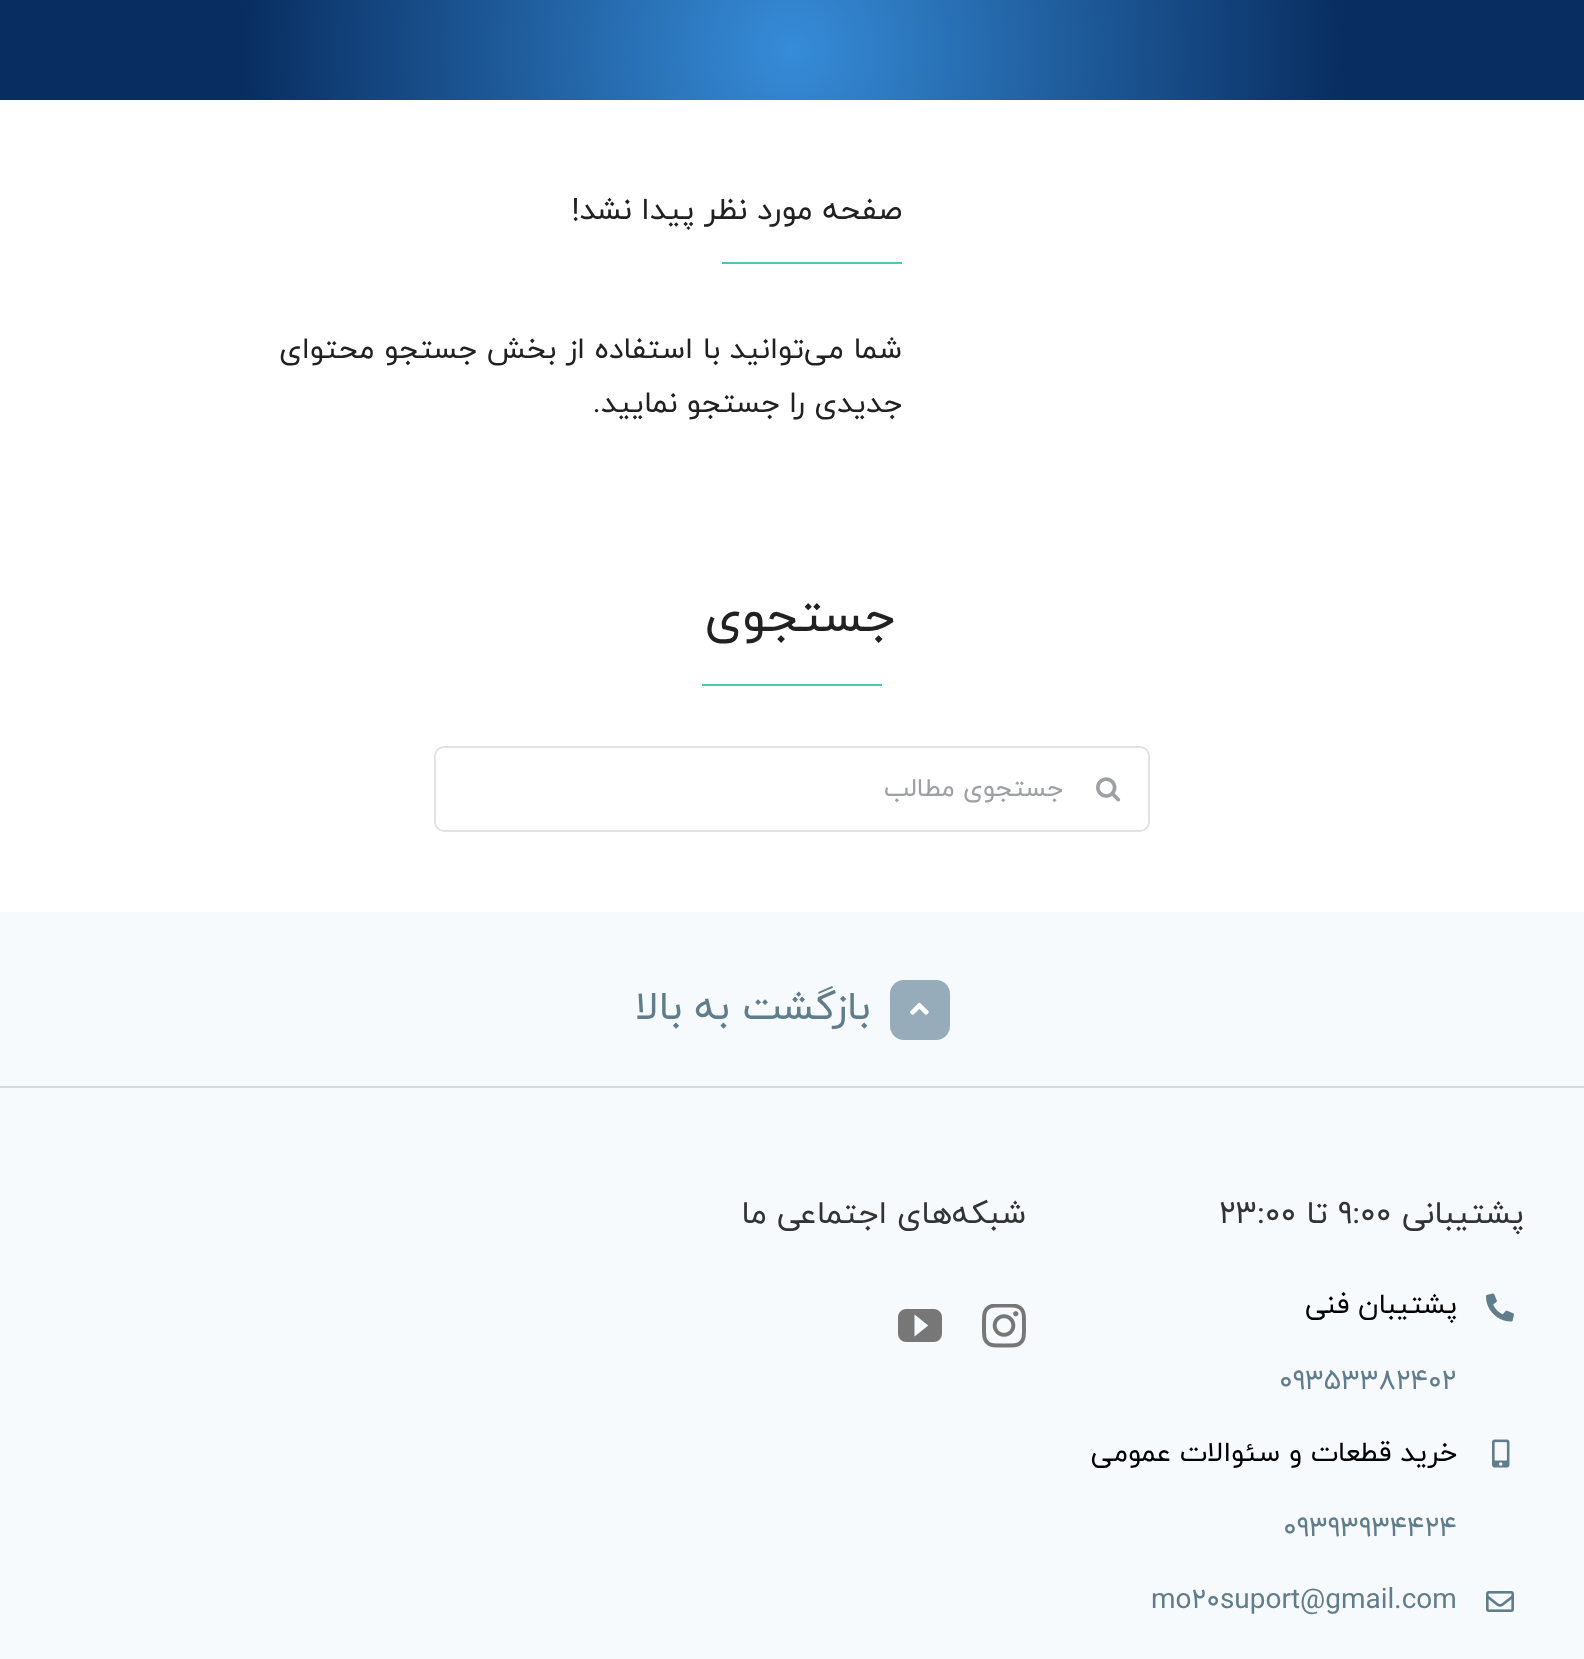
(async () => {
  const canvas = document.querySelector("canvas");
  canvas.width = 1584;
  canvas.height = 1659;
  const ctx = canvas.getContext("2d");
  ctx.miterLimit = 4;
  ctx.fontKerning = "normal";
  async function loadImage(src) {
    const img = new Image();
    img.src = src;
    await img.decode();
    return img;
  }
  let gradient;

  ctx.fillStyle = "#ffffff";
  ctx.fillRect(0, 0, 1584, 1659);
  gradient = ctx.createRadialGradient(792, 50, 0, 792, 50, 794);
  gradient.addColorStop(0, "#368cd8");
  gradient.addColorStop(0.7, "#082d60");
  ctx.fillStyle = gradient;
  ctx.fillRect(0, 0, 1584, 100);
  ctx.fillStyle = "#48cab2";
  ctx.fillRect(722, 262, 180, 2);
  ctx.fillRect(702, 684, 180, 2);
  ctx.beginPath();
  ctx.roundRect(435, 747, 714, 84, 9);
  ctx.strokeStyle = "#e2e2e2";
  ctx.lineWidth = 2;
  ctx.stroke();
  ctx.drawImage(await loadImage("img/1.png"), 1096, 777, 25, 25);
  ctx.fillStyle = "#f7fafd";
  ctx.fillRect(0, 912, 1584, 174);
  ctx.fillStyle = "#96acba";
  ctx.beginPath();
  ctx.roundRect(890, 980, 60, 60, 14);
  ctx.fill();
  ctx.drawImage(await loadImage("img/2.png"), 910, 1002, 19, 13);
  ctx.fillStyle = "#f7fafd";
  ctx.fillRect(0, 1088, 1584, 571);
  ctx.fillStyle = "#cfd8dc";
  ctx.fillRect(0, 1086, 1584, 2);
  ctx.drawImage(await loadImage("img/3.png"), 1486, 1293, 28, 29);
  ctx.drawImage(await loadImage("img/4.png"), 1492, 1439, 18, 29);
  ctx.drawImage(await loadImage("img/5.png"), 1486, 1591, 28, 21);
  ctx.drawImage(await loadImage("img/6.png"), 982, 1304, 44, 44);
  ctx.drawImage(await loadImage("img/7.png"), 898, 1309, 44, 33);
  ctx.direction = "rtl";
  ctx.font = "31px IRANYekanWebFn";
  ctx.fillStyle = "#212121";
  ctx.fillText("صفحه مورد نظر پیدا نشد!", 902, 219);
  ctx.font = "30px IRANYekanWebFn";
  ctx.fillText("شما می‌توانید با استفاده از بخش جستجو محتوای", 902, 358);
  ctx.fillText("جدیدی را جستجو نمایید.", 902, 412);
  ctx.font = "49.5px IRANYekanWebFn";
  ctx.fillText("جستجوی", 895, 631);
  ctx.font = "26px IRANYekanWebFn";
  ctx.fillStyle = "#9ea0a4";
  ctx.fillText("جستجوی مطالب", 1063, 796);
  ctx.font = "40px IRANYekanWebFn";
  ctx.fillStyle = "#607d8b";
  ctx.fillText("بازگشت به بالا", 870, 1019);
  ctx.font = "32px IRANYekanWebFn";
  ctx.fillStyle = "#333333";
  ctx.fillText("پشتیبانی", 1524, 1223);
  ctx.direction = "ltr";
  ctx.fillText("9:00", 1338, 1223);
  ctx.direction = "rtl";
  ctx.fillText("تا", 1328, 1223);
  ctx.direction = "ltr";
  ctx.fillText("23:00", 1219, 1223);
  ctx.direction = "rtl";
  ctx.font = "28px IRANYekanWebFn";
  ctx.fillStyle = "#000000";
  ctx.fillText("پشتیبان فنی", 1457, 1313);
  ctx.direction = "ltr";
  ctx.fillStyle = "#607d8b";
  ctx.fillText("09353382402", 1279, 1389);
  ctx.direction = "rtl";
  ctx.fillStyle = "#000000";
  ctx.fillText("خرید قطعات و سئوالات عمومی", 1457, 1461);
  ctx.direction = "ltr";
  ctx.fillStyle = "#607d8b";
  ctx.fillText("09393934424", 1283, 1536);
  ctx.fillText("mo20suport@gmail.com", 1151, 1608);
  ctx.direction = "rtl";
  ctx.font = "32px IRANYekanWebFn";
  ctx.fillStyle = "#333333";
  ctx.fillText("شبکه‌های اجتماعی ما", 1026, 1223);
})();
